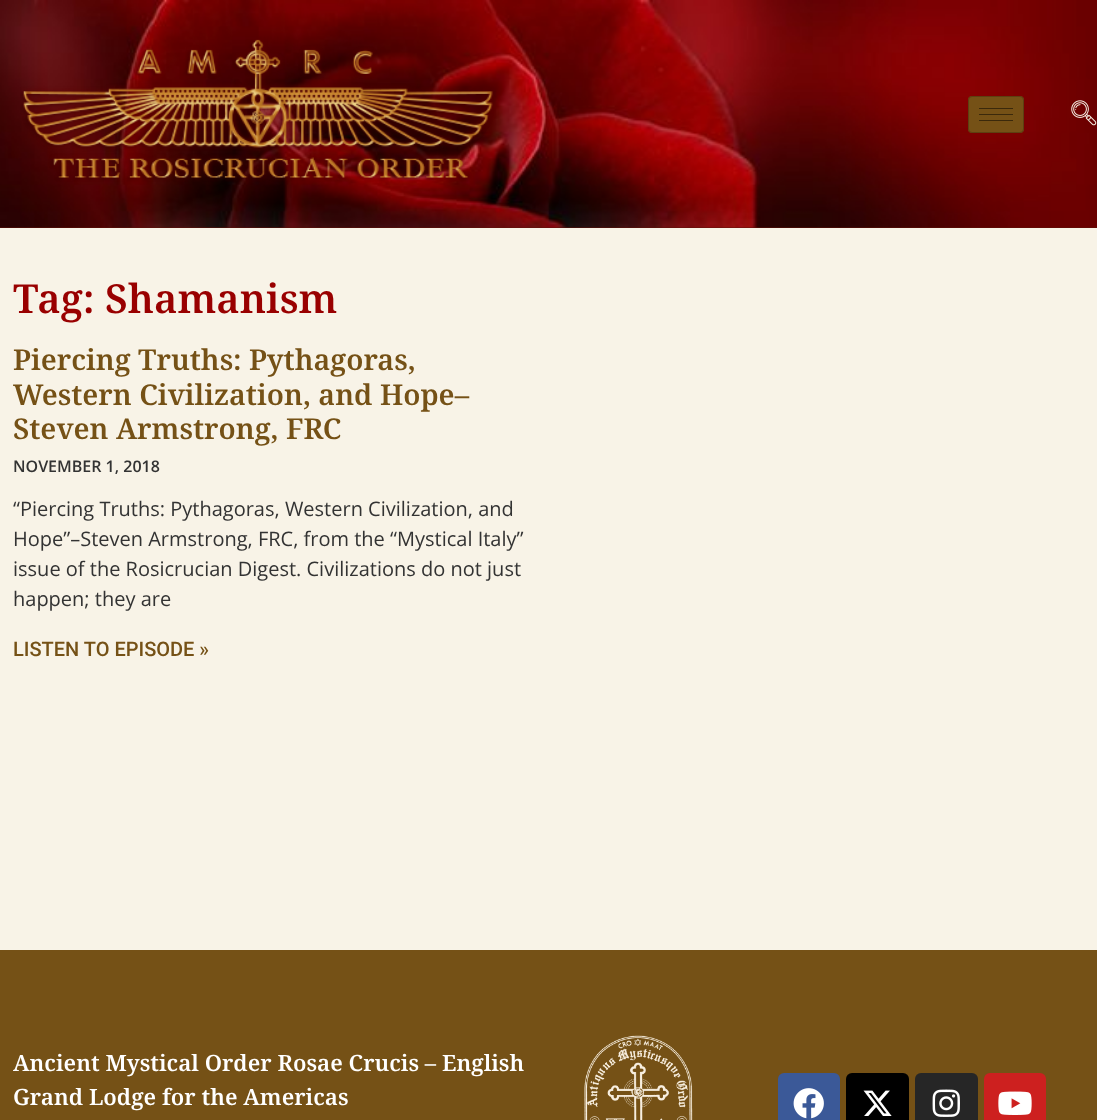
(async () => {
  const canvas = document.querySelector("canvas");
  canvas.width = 1097;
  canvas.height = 1120;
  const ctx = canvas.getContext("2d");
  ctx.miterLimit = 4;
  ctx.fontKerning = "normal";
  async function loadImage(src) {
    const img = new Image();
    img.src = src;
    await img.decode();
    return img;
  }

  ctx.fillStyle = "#f8f3e7";
  ctx.fillRect(0, 0, 1097, 1120);
  ctx.fillStyle = "#601209";
  ctx.fillRect(0, 227, 1097, 1);
  ctx.drawImage(await loadImage("img/1.png"), 0, 0, 1097, 228);
  ctx.drawImage(await loadImage("img/2.png"), 20, 39, 474, 143);
  ctx.fillStyle = "#755116";
  ctx.beginPath();
  ctx.roundRect(968, 96, 56, 37, 4);
  ctx.fill();
  ctx.beginPath();
  ctx.roundRect(968.5, 96.5, 55, 36, 3.5);
  ctx.strokeStyle = "rgba(0, 0, 0, 0.2)";
  ctx.stroke();
  for (const [x, y, w, h, color] of [
    [979, 108, 34, 1, "#3b290b"],
    [979, 114, 34, 1, "#3b290b"],
    [979, 120, 34, 1, "#3b290b"],
  ]) {
    ctx.fillStyle = color;
    ctx.fillRect(x, y, w, h);
  }
  ctx.drawImage(await loadImage("img/3.png"), 1071, 100, 26, 26);
  ctx.fillStyle = "#755116";
  ctx.fillRect(0, 950, 1097, 170);
  ctx.drawImage(await loadImage("img/4.png"), 584, 1035, 109, 85);
  ctx.fillStyle = "#3b5998";
  ctx.beginPath();
  ctx.roundRect(778, 1073, 62, 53, 6);
  ctx.fill();
  ctx.drawImage(await loadImage("img/5.png"), 793, 1088, 31, 31);
  ctx.fillStyle = "#000000";
  ctx.beginPath();
  ctx.roundRect(846, 1073, 63, 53, 6);
  ctx.fill();
  ctx.drawImage(await loadImage("img/6.png"), 863, 1090, 29, 26);
  ctx.fillStyle = "#262626";
  ctx.beginPath();
  ctx.roundRect(915, 1073, 63, 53, 6);
  ctx.fill();
  ctx.drawImage(await loadImage("img/7.png"), 932, 1089, 28, 28);
  ctx.fillStyle = "#cd201f";
  ctx.beginPath();
  ctx.roundRect(984, 1073, 62, 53, 6);
  ctx.fill();
  ctx.drawImage(await loadImage("img/8.png"), 998, 1091, 34, 24);
  ctx.font = "600 40px Noto Serif";
  ctx.fillStyle = "#990000";
  ctx.fillText("Tag: Shamanism", 13, 313);
  ctx.font = "600 28.75px Noto Serif";
  ctx.fillStyle = "#755116";
  for (const [text, x, y] of [
    ["Piercing Truths: Pythagoras,", 13, 370],
    ["Western Civilization, and Hope–", 13, 405],
    ["Steven Armstrong, FRC", 13, 439],
  ]) {
    ctx.fillText(text, x, y);
  }
  ctx.font = "600 16px Open Sans";
  ctx.fillStyle = "#333333";
  ctx.fillText("NOVEMBER 1, 2018", 13, 472);
  ctx.font = "20px Open Sans";
  for (const [text, x, y] of [
    ["“Piercing Truths: Pythagoras, Western Civilization, and", 13, 516],
    ["Hope”–Steven Armstrong, FRC, from the “Mystical Italy”", 13, 546],
    ["issue of the Rosicrucian Digest. Civilizations do not just", 13, 576],
    ["happen; they are", 13, 606],
  ]) {
    ctx.fillText(text, x, y);
  }
  ctx.font = "500 20px Roboto";
  ctx.fillStyle = "#755116";
  ctx.fillText("LISTEN TO EPISODE »", 13, 656);
  ctx.font = "600 22.5px Noto Serif";
  ctx.fillStyle = "#ffffff";
  ctx.fillText("Ancient Mystical Order Rosae Crucis – English", 13, 1071);
  ctx.fillText("Grand Lodge for the Americas", 13, 1105);
})();
